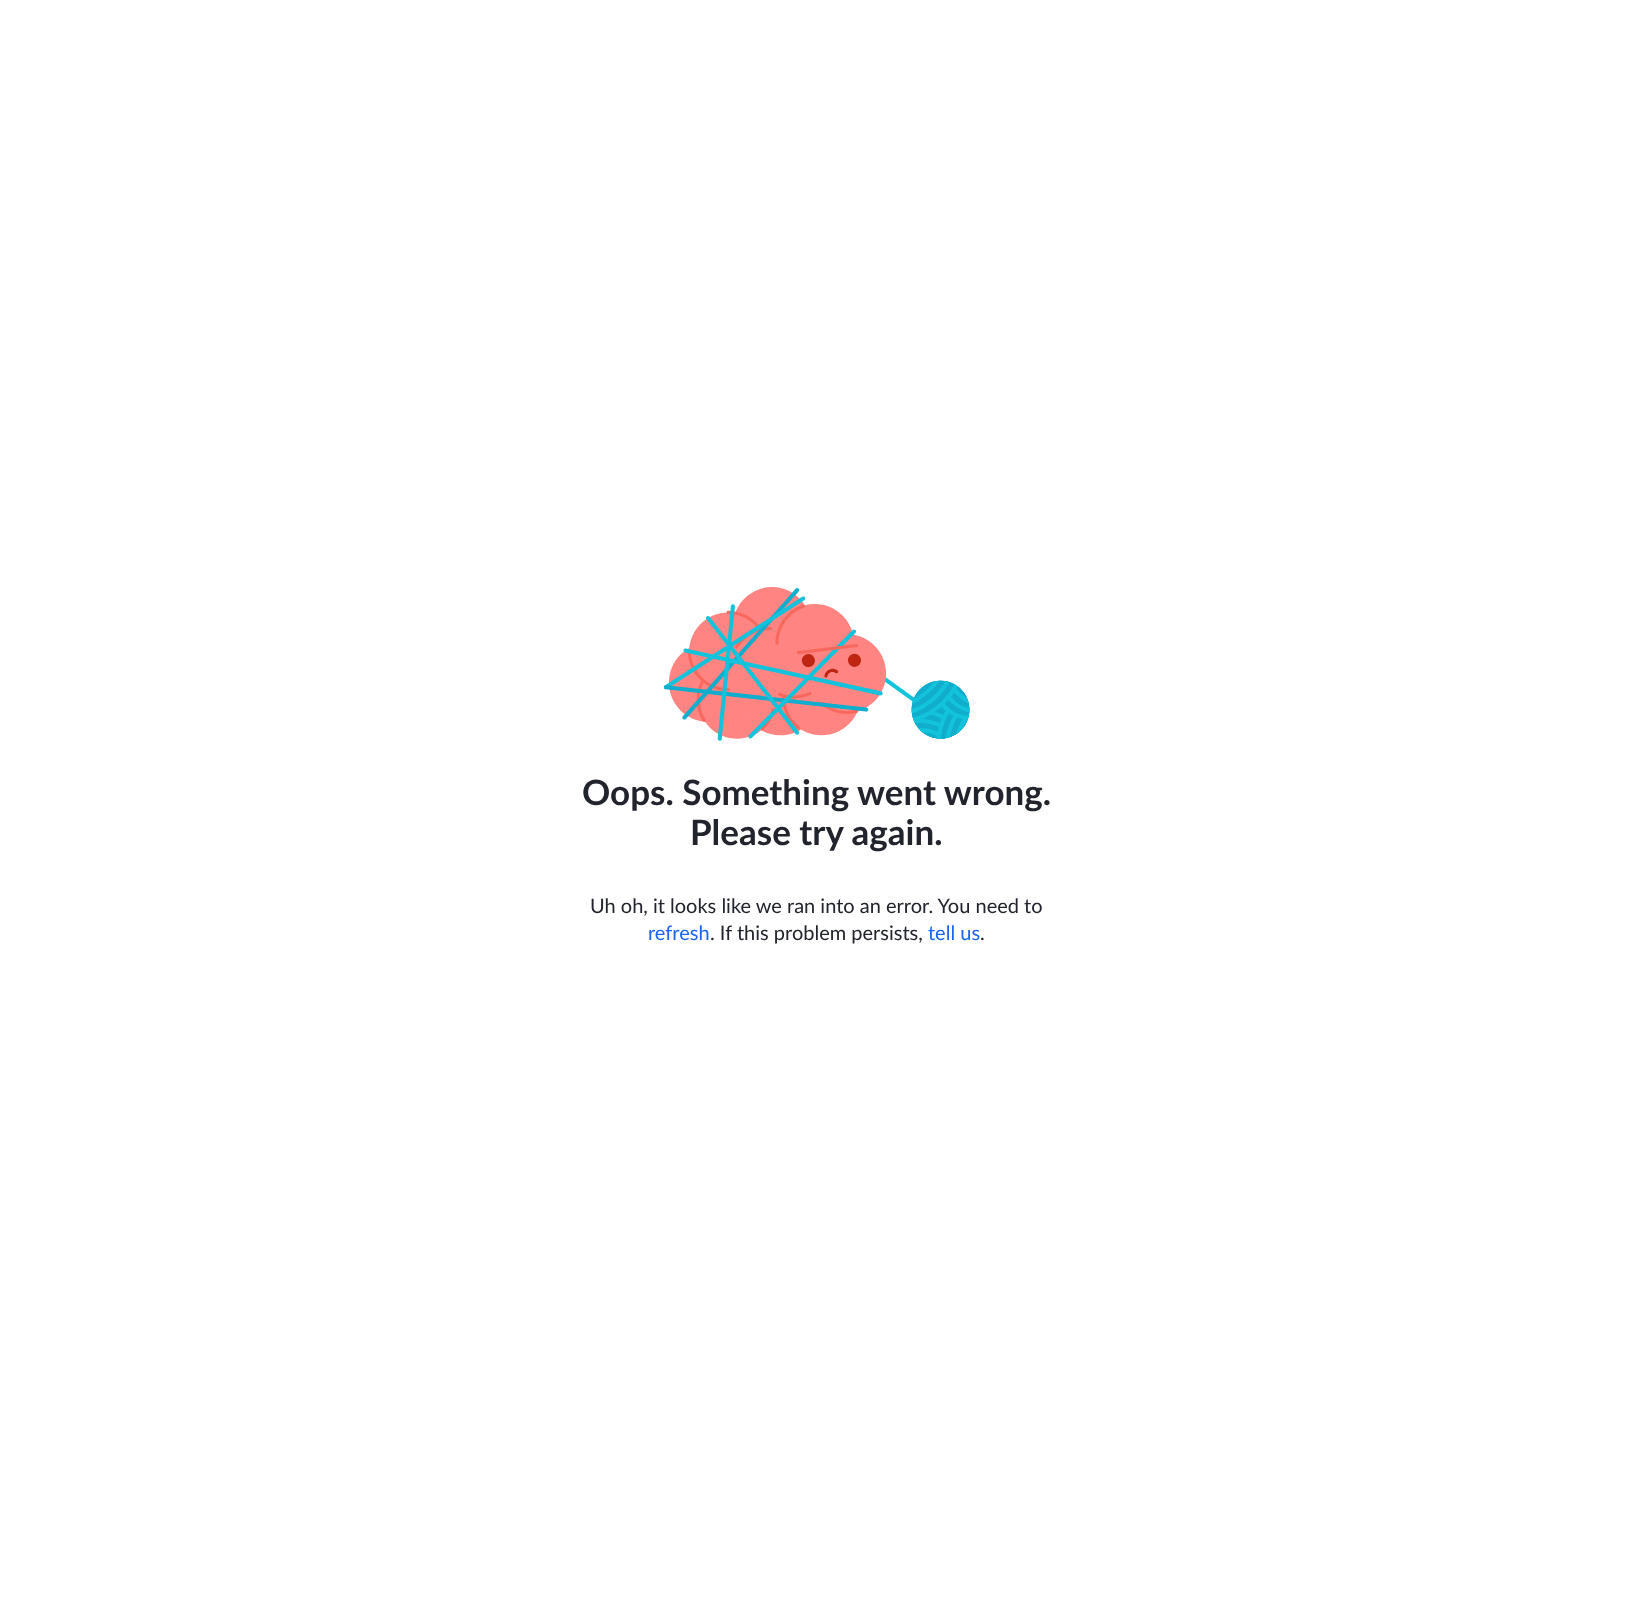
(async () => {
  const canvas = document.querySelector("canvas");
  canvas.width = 1632;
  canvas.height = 1607;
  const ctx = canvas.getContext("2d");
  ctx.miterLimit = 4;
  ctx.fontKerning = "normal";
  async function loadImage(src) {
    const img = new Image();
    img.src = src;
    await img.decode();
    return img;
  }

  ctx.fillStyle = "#ffffff";
  ctx.fillRect(0, 0, 1632, 1607);
  ctx.drawImage(await loadImage("img/1.png"), 663, 587, 307, 154);
  ctx.font = "bold 35px Lato";
  ctx.fillStyle = "#21242c";
  ctx.fillText("Oops. Something went wrong.", 582, 805);
  ctx.fillText("Please try again.", 690, 845);
  ctx.font = "20px Lato";
  ctx.fillText("Uh oh, it looks like we ran into an error. You need to", 590, 913);
  ctx.fillStyle = "#1865f2";
  ctx.fillText("refresh", 648, 940);
  ctx.fillStyle = "#21242c";
  ctx.fillText(". If this problem persists,", 710, 940);
  ctx.fillStyle = "#1865f2";
  ctx.fillText("tell us", 928, 940);
  ctx.fillStyle = "#21242c";
  ctx.fillText(".", 980, 940);
})();
